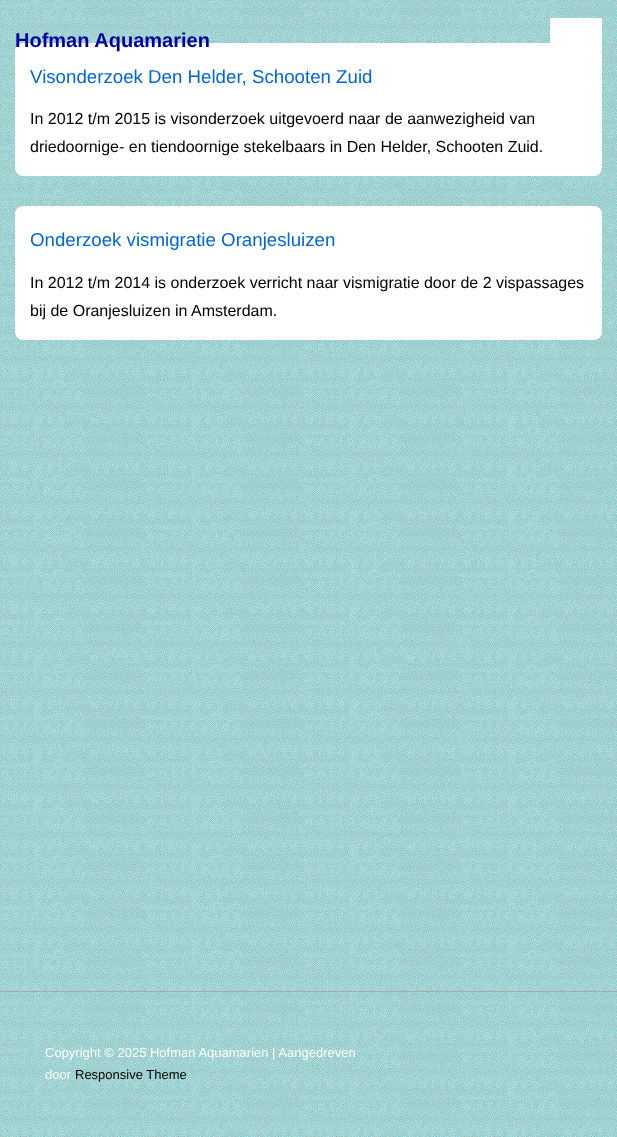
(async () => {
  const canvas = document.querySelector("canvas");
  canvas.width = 617;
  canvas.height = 1137;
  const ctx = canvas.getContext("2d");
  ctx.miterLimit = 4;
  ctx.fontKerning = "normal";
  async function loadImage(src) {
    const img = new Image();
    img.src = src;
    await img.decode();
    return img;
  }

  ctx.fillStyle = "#ffffff";
  ctx.fillRect(0, 0, 617, 1137);
  ctx.drawImage(await loadImage("img/1.png"), 0, 0, 617, 1137);
  ctx.beginPath();
  ctx.roundRect(15, 43, 587, 133, 8);
  ctx.fill();
  ctx.fillRect(550, 18, 52, 33);
  ctx.beginPath();
  ctx.roundRect(15, 206, 587, 134, 8);
  ctx.fill();
  ctx.fillStyle = "#aaaaaa";
  ctx.fillRect(0, 991, 617, 1);
  ctx.font = "bold 20px Liberation Sans";
  ctx.fillStyle = "#000099";
  ctx.fillText("Hofman Aquamarien", 15, 47);
  ctx.font = "18.7px Liberation Sans";
  ctx.fillStyle = "#0066cc";
  ctx.fillText("Visonderzoek Den Helder, Schooten Zuid", 30, 83);
  ctx.font = "16px Liberation Sans";
  ctx.fillStyle = "#000000";
  ctx.fillText("In 2012 t/m 2015 is visonderzoek uitgevoerd naar de aanwezigheid van", 30, 124);
  ctx.fillText("driedoornige- en tiendoornige stekelbaars in Den Helder, Schooten Zuid.", 30, 152);
  ctx.font = "18.7px Liberation Sans";
  ctx.fillStyle = "#0066cc";
  ctx.fillText("Onderzoek vismigratie Oranjesluizen", 30, 246);
  ctx.font = "16px Liberation Sans";
  ctx.fillStyle = "#000000";
  ctx.fillText("In 2012 t/m 2014 is onderzoek verricht naar vismigratie door de 2 vispassages", 30, 288);
  ctx.fillText("bij de Oranjesluizen in Amsterdam.", 30, 316);
  ctx.font = "13px Liberation Sans";
  ctx.fillStyle = "#ffffff";
  ctx.fillText("Copyright © 2025 Hofman Aquamarien | Aangedreven", 45, 1057);
  ctx.fillText("door", 45, 1079);
  ctx.fillStyle = "#000000";
  ctx.fillText("Responsive Theme", 75, 1079);
})();
